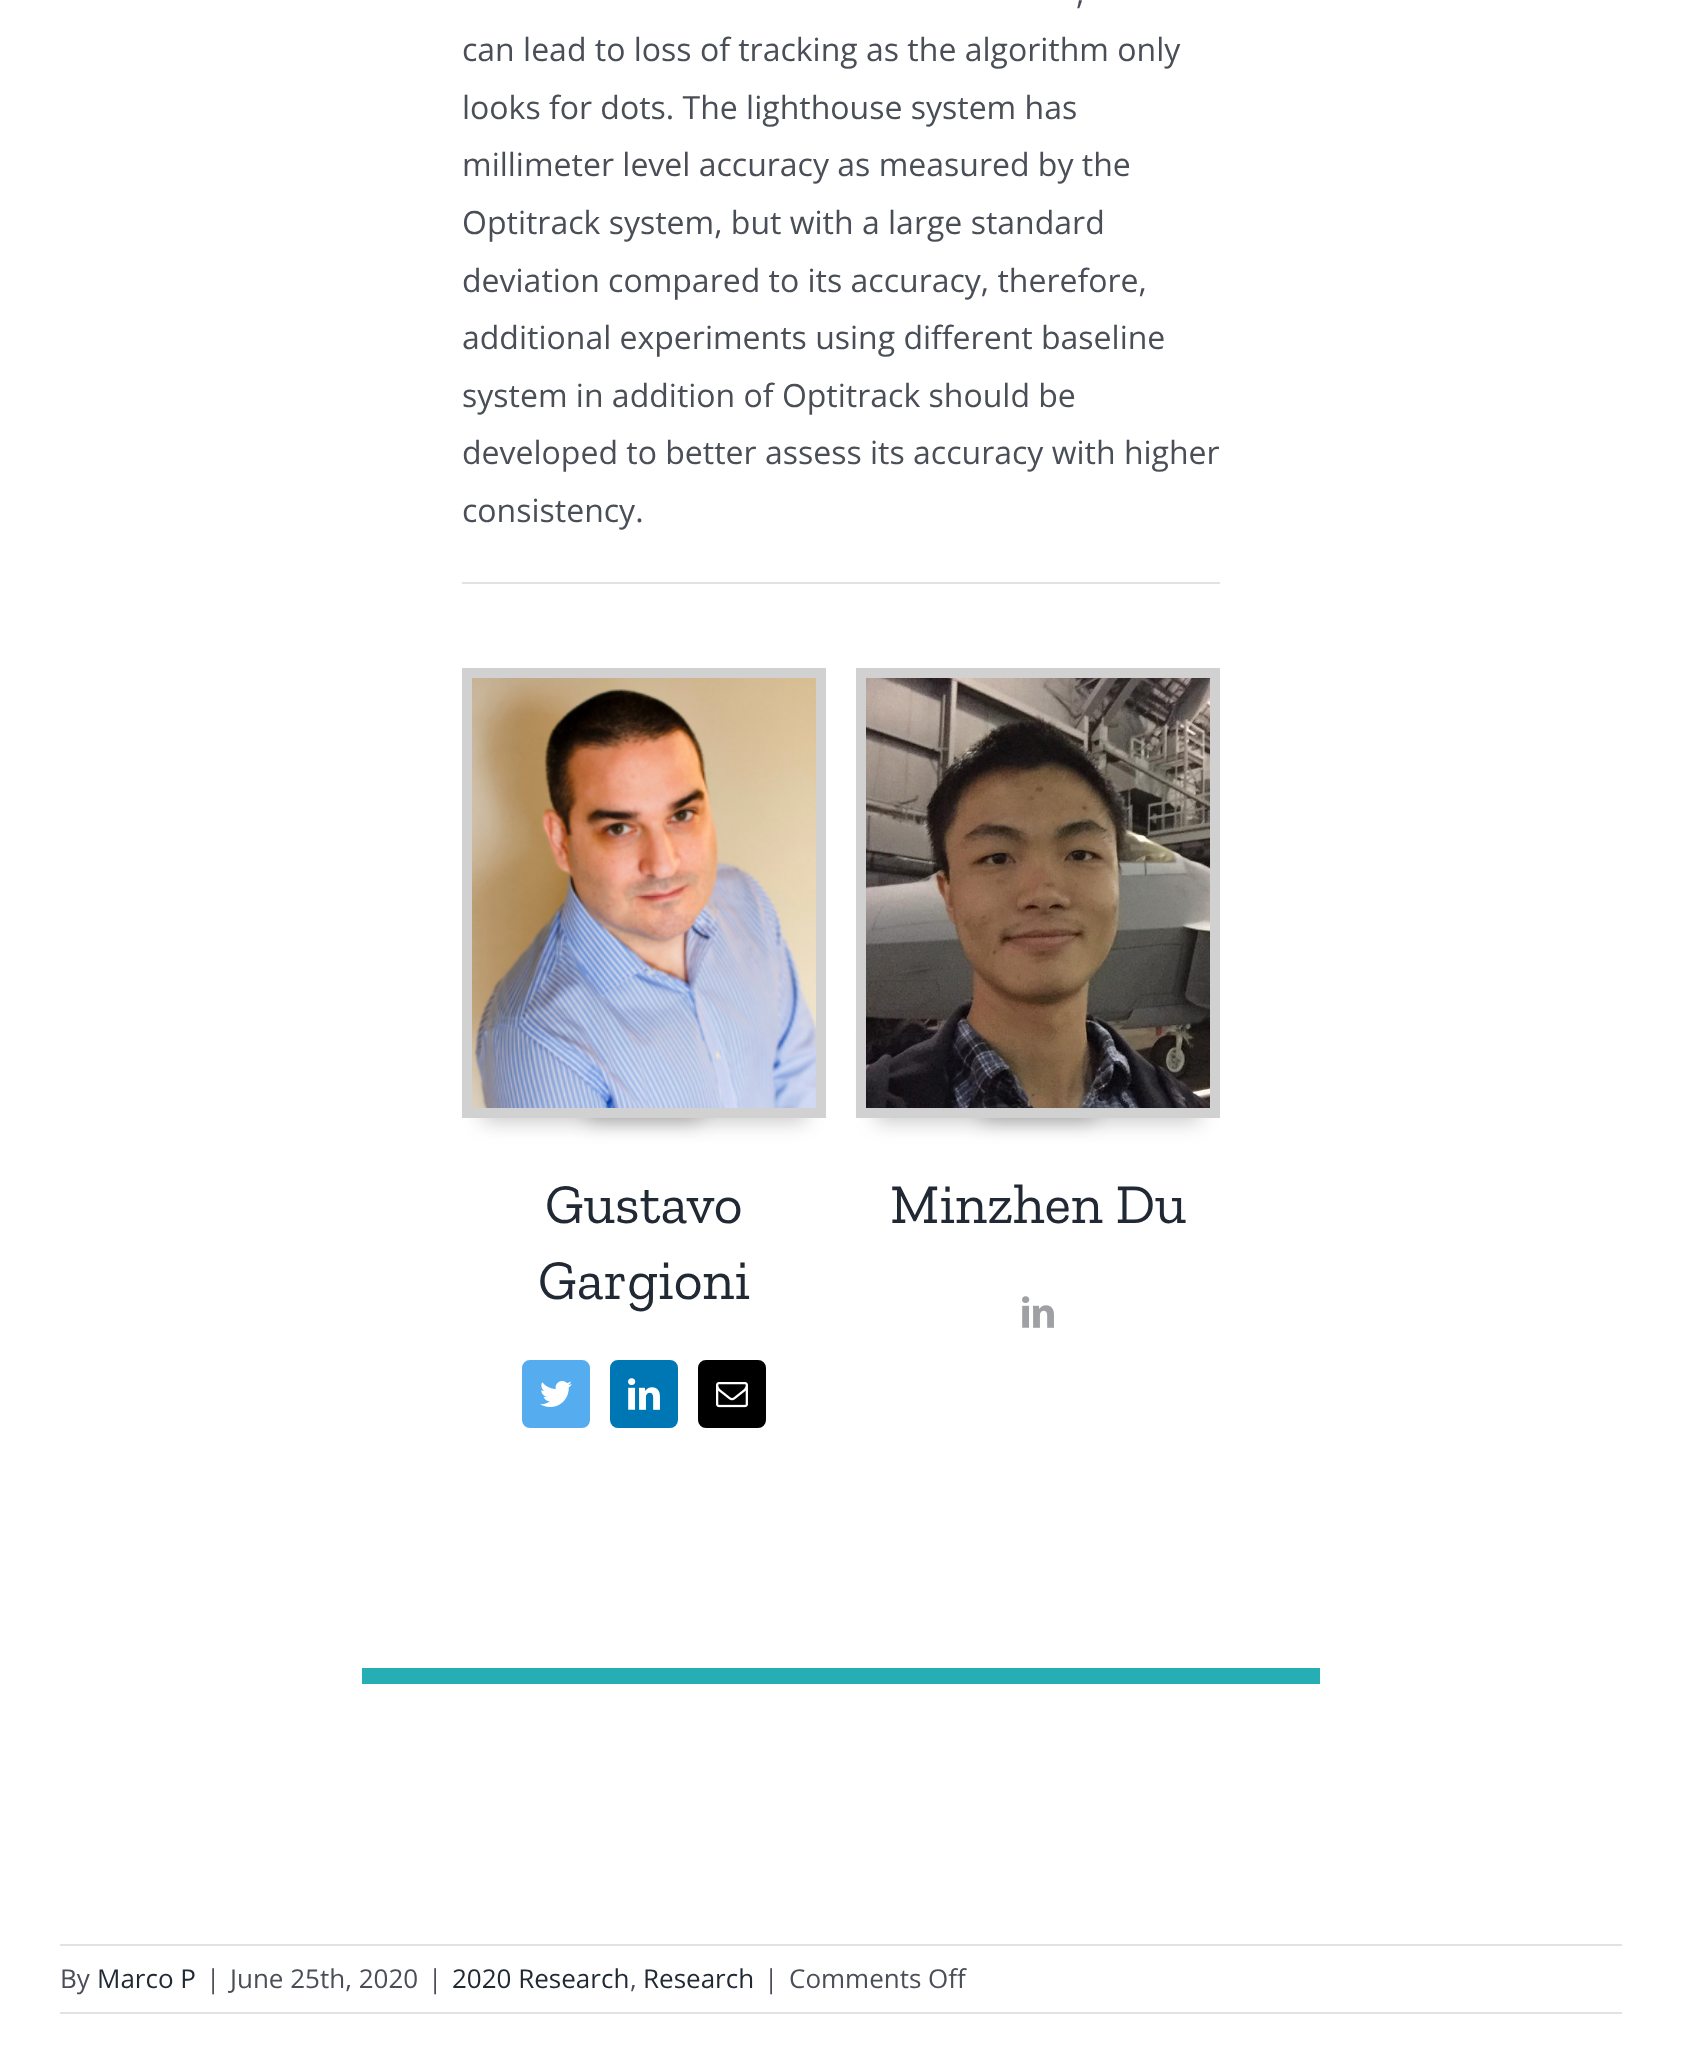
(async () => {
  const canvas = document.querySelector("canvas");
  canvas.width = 1682;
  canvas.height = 2070;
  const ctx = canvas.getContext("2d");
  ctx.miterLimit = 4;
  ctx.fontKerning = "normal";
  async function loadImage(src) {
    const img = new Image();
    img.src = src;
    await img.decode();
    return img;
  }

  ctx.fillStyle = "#ffffff";
  ctx.fillRect(0, 0, 1682, 2070);
  ctx.fillStyle = "#25afb4";
  ctx.fillRect(362, 1668, 958, 16);
  ctx.fillStyle = "#e2e2e2";
  ctx.fillRect(462, 582, 758, 2);
  ctx.fillStyle = "rgba(77, 77, 77, 0.3)";
  ctx.filter = "blur(10px)";
  ctx.beginPath();
  ctx.rect(482, 1032, 218, 90);
  ctx.fill();
  ctx.filter = "none";
  ctx.fillStyle = "rgba(0, 0, 0, 0.21)";
  ctx.filter = "blur(10px)";
  ctx.beginPath();
  ctx.rect(588, 1032, 218, 90);
  ctx.fill();
  ctx.filter = "none";
  ctx.strokeStyle = "#d1d1d1";
  ctx.lineWidth = 10;
  ctx.strokeRect(467, 673, 354, 440);
  ctx.drawImage(await loadImage("img/1.png"), 472, 678, 344, 430);
  ctx.fillStyle = "#55acee";
  ctx.beginPath();
  ctx.roundRect(523, 1361, 66, 66, 7);
  ctx.fill();
  ctx.strokeStyle = "#55acee";
  ctx.lineWidth = 2;
  ctx.stroke();
  ctx.drawImage(await loadImage("img/2.png"), 540, 1381, 32, 26);
  ctx.fillStyle = "#0077b5";
  ctx.beginPath();
  ctx.roundRect(611, 1361, 66, 66, 7);
  ctx.fill();
  ctx.strokeStyle = "#0077b5";
  ctx.stroke();
  ctx.drawImage(await loadImage("img/3.png"), 628, 1378, 32, 32);
  ctx.fillStyle = "#000000";
  ctx.beginPath();
  ctx.roundRect(699, 1361, 66, 66, 7);
  ctx.fill();
  ctx.strokeStyle = "#000000";
  ctx.stroke();
  ctx.drawImage(await loadImage("img/4.png"), 716, 1382, 32, 26);
  ctx.fillStyle = "rgba(77, 77, 77, 0.3)";
  ctx.filter = "blur(10px)";
  ctx.beginPath();
  ctx.rect(876, 1032, 218, 90);
  ctx.fill();
  ctx.filter = "none";
  ctx.fillStyle = "rgba(0, 0, 0, 0.21)";
  ctx.filter = "blur(10px)";
  ctx.beginPath();
  ctx.rect(982, 1032, 218, 90);
  ctx.fill();
  ctx.filter = "none";
  ctx.strokeStyle = "#d1d1d1";
  ctx.lineWidth = 10;
  ctx.strokeRect(861, 673, 354, 440);
  ctx.drawImage(await loadImage("img/5.png"), 866, 678, 344, 430);
  ctx.drawImage(await loadImage("img/6.png"), 1022, 1296, 32, 32);
  ctx.fillStyle = "#e2e2e2";
  ctx.fillRect(60, 1944, 1562, 2);
  ctx.fillRect(60, 2012, 1562, 2);
  ctx.font = "32px Open Sans";
  ctx.fillStyle = "#4a4e57";
  for (const [text, x, y] of [
    [",", 1076, 4],
    ["can lead to loss of tracking as the algorithm only", 462, 61],
    ["looks for dots. The lighthouse system has", 462, 119],
    ["millimeter level accuracy as measured by the", 462, 176],
    ["Optitrack system, but with a large standard", 462, 234],
    ["deviation compared to its accuracy, therefore,", 462, 292],
    ["additional experiments using different baseline", 462, 349],
    ["system in addition of Optitrack should be", 462, 407],
    ["developed to better assess its accuracy with higher", 462, 464],
    ["consistency.", 462, 522],
  ]) {
    ctx.fillText(text, x, y);
  }
  ctx.font = "56px Zilla Slab";
  ctx.fillStyle = "#212934";
  for (const [text, x, y] of [
    ["Gustavo", 545, 1223],
    ["Gargioni", 538, 1299],
    ["Minzhen Du", 890, 1223],
  ]) {
    ctx.fillText(text, x, y);
  }
  ctx.font = "26px Open Sans";
  ctx.fillStyle = "#4a4e57";
  ctx.fillText("By", 60, 1988);
  ctx.fillStyle = "#212934";
  ctx.fillText("Marco P", 97, 1988);
  ctx.fillStyle = "#4a4e57";
  for (const [text, x, y] of [
    ["|", 206, 1988],
    ["June 25th, 2020", 230, 1988],
    ["|", 428, 1988],
  ]) {
    ctx.fillText(text, x, y);
  }
  ctx.fillStyle = "#212934";
  ctx.fillText("2020 Research", 452, 1988);
  ctx.fillStyle = "#4a4e57";
  ctx.fillText(",", 630, 1988);
  ctx.fillStyle = "#212934";
  ctx.fillText("Research", 643, 1988);
  ctx.fillStyle = "#4a4e57";
  ctx.fillText("|", 764, 1988);
  ctx.fillText("Comments Off", 789, 1988);
})();
